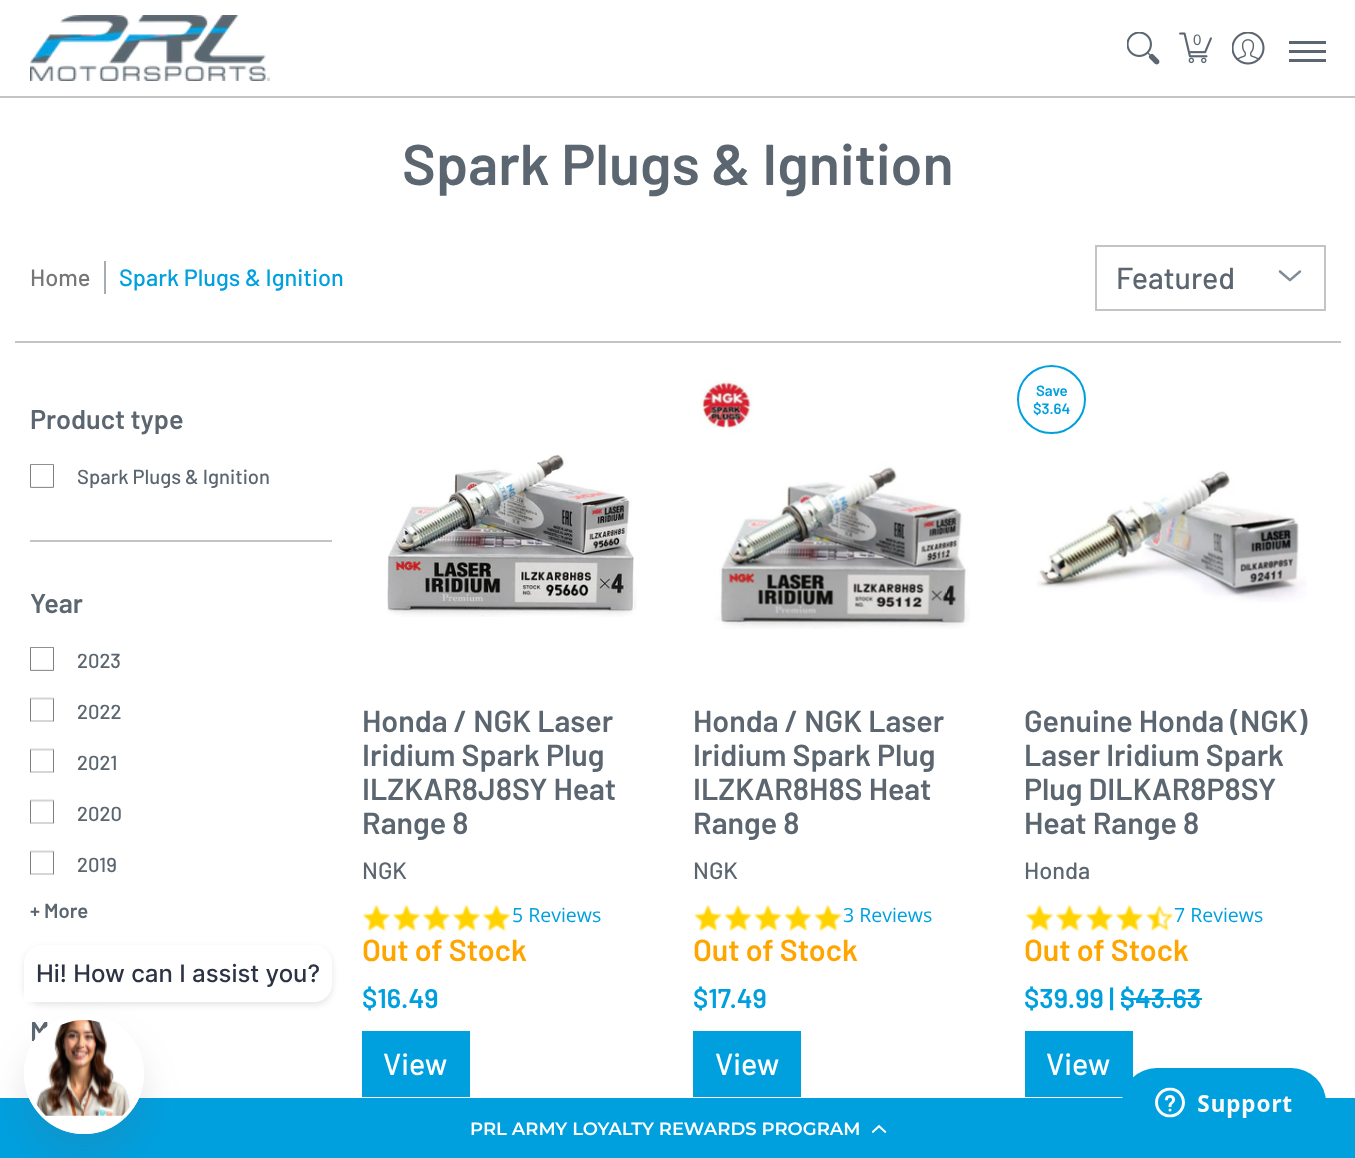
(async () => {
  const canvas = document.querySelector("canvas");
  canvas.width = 1355;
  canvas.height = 1158;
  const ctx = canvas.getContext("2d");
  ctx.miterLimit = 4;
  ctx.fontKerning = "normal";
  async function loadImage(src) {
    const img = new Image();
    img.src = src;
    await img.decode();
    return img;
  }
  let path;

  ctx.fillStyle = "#ffffff";
  ctx.fillRect(0, 0, 1355, 1158);
  ctx.fillStyle = "#c1c5c8";
  ctx.fillRect(0, 96, 1355, 2);
  ctx.drawImage(await loadImage("img/1.png"), 30, 15, 240, 66);
  ctx.drawImage(await loadImage("img/2.png"), 1127, 32, 33, 33);
  ctx.drawImage(await loadImage("img/3.png"), 1179, 32, 33, 32);
  ctx.drawImage(await loadImage("img/4.png"), 1232, 32, 33, 33);
  for (const [x, y, w, h, color] of [
    [1289, 41, 37, 3, "#5b6670"],
    [1289, 59, 37, 3, "#5b6670"],
    [1289, 50, 37, 3, "#5b6670"],
    [15, 341, 1326, 2, "#c1c5c8"],
    [104, 261, 2, 33, "#a6acb0"],
  ]) {
    ctx.fillStyle = color;
    ctx.fillRect(x, y, w, h);
  }
  ctx.drawImage(await loadImage("img/5.png"), 1278, 270, 24, 12);
  ctx.strokeStyle = "#c1c5c8";
  ctx.lineWidth = 2;
  ctx.strokeRect(1096, 246, 229, 64);
  ctx.fillStyle = "#c1c5c8";
  ctx.fillRect(30, 540, 302, 2);
  ctx.drawImage(await loadImage("img/6.png"), 30, 464, 24, 24);
  ctx.drawImage(await loadImage("img/6.png"), 30, 647, 24, 24);
  ctx.drawImage(await loadImage("img/7.png"), 30, 697, 24, 25);
  ctx.drawImage(await loadImage("img/7.png"), 30, 748, 24, 25);
  ctx.drawImage(await loadImage("img/7.png"), 30, 799, 24, 25);
  ctx.drawImage(await loadImage("img/7.png"), 30, 850, 24, 25);
  ctx.drawImage(await loadImage("img/8.png"), 387, 454, 250, 163);
  ctx.drawImage(await loadImage("img/9.png"), 363, 904, 27, 28);
  ctx.drawImage(await loadImage("img/9.png"), 393, 904, 27, 28);
  ctx.drawImage(await loadImage("img/9.png"), 423, 904, 27, 28);
  ctx.drawImage(await loadImage("img/9.png"), 453, 904, 27, 28);
  ctx.drawImage(await loadImage("img/9.png"), 483, 904, 27, 28);
  ctx.fillStyle = "#00a0df";
  ctx.fillRect(362, 1031, 108, 66);
  ctx.drawImage(await loadImage("img/10.png"), 700, 380, 270, 249);
  ctx.drawImage(await loadImage("img/11.png"), 694, 904, 28, 28);
  ctx.drawImage(await loadImage("img/11.png"), 724, 904, 28, 28);
  ctx.drawImage(await loadImage("img/12.png"), 754, 904, 28, 28);
  ctx.drawImage(await loadImage("img/13.png"), 784, 904, 28, 28);
  ctx.drawImage(await loadImage("img/13.png"), 814, 904, 28, 28);
  ctx.fillRect(693, 1031, 108, 66);
  ctx.beginPath();
  ctx.arc(1051.5, 399.5, 33.5, 0, Math.PI * 2);
  ctx.strokeStyle = "#00a0df";
  ctx.stroke();
  ctx.drawImage(await loadImage("img/14.png"), 1036, 471, 271, 132);
  ctx.drawImage(await loadImage("img/15.png"), 1026, 904, 27, 28);
  ctx.drawImage(await loadImage("img/9.png"), 1056, 904, 27, 28);
  ctx.drawImage(await loadImage("img/9.png"), 1086, 904, 27, 28);
  ctx.drawImage(await loadImage("img/9.png"), 1116, 904, 27, 28);
  ctx.drawImage(await loadImage("img/16.png"), 1146, 904, 27, 28);
  for (const [x, y, w, h, color] of [
    [1121, 998, 81, 2, "#00a0df"],
    [1025, 1031, 108, 66, "#00a0df"],
    [0, 1098, 1355, 60, "#00a0df"],
  ]) {
    ctx.fillStyle = color;
    ctx.fillRect(x, y, w, h);
  }
  ctx.drawImage(await loadImage("img/18.png"), 1122, 1068, 204, 50);
  ctx.drawImage(await loadImage("img/19.png"), 872, 1124, 15, 10);
  ctx.font = "15px Liberation Sans";
  ctx.fillStyle = "#5b6670";
  ctx.fillText("0", 1193, 45);
  ctx.font = "600 57.4px Barlow";
  ctx.fillText("Spark Plugs & Ignition", 402, 185);
  ctx.font = "500 23.6px Barlow";
  ctx.fillStyle = "#767676";
  ctx.fillText("Home", 30, 286);
  ctx.fillStyle = "#00a0df";
  ctx.fillText("Spark Plugs & Ignition", 119, 286);
  ctx.font = "500 30.4px Barlow";
  ctx.fillStyle = "#5b6670";
  ctx.fillText("Featured", 1116, 289);
  ctx.font = "600 27px Barlow";
  ctx.fillText("Product type", 30, 429);
  ctx.font = "500 20.25px Barlow";
  ctx.fillText("Spark Plugs & Ignition", 77, 484);
  ctx.font = "600 27px Barlow";
  ctx.fillText("Year", 30, 613);
  ctx.font = "500 20.25px Barlow";
  for (const [text, x, y] of [
    ["2023", 77, 668],
    ["2022", 77, 719],
    ["2021", 77, 770],
    ["2020", 77, 821],
    ["2019", 77, 872],
  ]) {
    ctx.fillText(text, x, y);
  }
  ctx.font = "600 20.25px Barlow";
  ctx.fillText("+ More", 30, 918);
  ctx.font = "600 27px Barlow";
  ctx.fillText("M", 30, 1041);
  ctx.font = "600 30.4px Barlow";
  for (const [text, x, y] of [
    ["Honda / NGK Laser", 362, 732],
    ["Iridium Spark Plug", 362, 766],
    ["ILZKAR8J8SY Heat", 362, 800],
    ["Range 8", 362, 834],
  ]) {
    ctx.fillText(text, x, y);
  }
  ctx.font = "500 23.6px Barlow";
  ctx.fillText("NGK", 362, 879);
  ctx.font = "19.5px Open Sans";
  ctx.fillStyle = "#00a0df";
  ctx.fillText("5 Reviews", 512, 922);
  ctx.font = "600 30.4px Barlow";
  ctx.fillStyle = "#ffa500";
  ctx.fillText("Out of Stock", 362, 961);
  ctx.font = "600 27px Barlow";
  ctx.fillStyle = "#00a0df";
  ctx.fillText("$16.49", 362, 1008);
  ctx.font = "500 30.4px Barlow";
  ctx.fillStyle = "#ffffff";
  ctx.fillText("View", 383, 1075);
  ctx.font = "600 30.4px Barlow";
  ctx.fillStyle = "#5b6670";
  for (const [text, x, y] of [
    ["Honda / NGK Laser", 693, 732],
    ["Iridium Spark Plug", 693, 766],
    ["ILZKAR8H8S Heat", 693, 800],
    ["Range 8", 693, 834],
  ]) {
    ctx.fillText(text, x, y);
  }
  ctx.font = "500 23.6px Barlow";
  ctx.fillText("NGK", 693, 879);
  ctx.font = "19.5px Open Sans";
  ctx.fillStyle = "#00a0df";
  ctx.fillText("3 Reviews", 843, 922);
  ctx.font = "600 30.4px Barlow";
  ctx.fillStyle = "#ffa500";
  ctx.fillText("Out of Stock", 693, 961);
  ctx.font = "600 27px Barlow";
  ctx.fillStyle = "#00a0df";
  ctx.fillText("$17.49", 693, 1008);
  ctx.font = "500 30.4px Barlow";
  ctx.fillStyle = "#ffffff";
  ctx.fillText("View", 715, 1075);
  ctx.font = "600 15px Barlow";
  ctx.fillStyle = "#00a0df";
  ctx.fillText("Save", 1036, 396);
  ctx.fillText("$3.64", 1033, 414);
  ctx.font = "600 30.4px Barlow";
  ctx.fillStyle = "#5b6670";
  for (const [text, x, y] of [
    ["Genuine Honda (NGK)", 1024, 732],
    ["Laser Iridium Spark", 1024, 766],
    ["Plug DILKAR8P8SY", 1024, 800],
    ["Heat Range 8", 1024, 834],
  ]) {
    ctx.fillText(text, x, y);
  }
  ctx.font = "500 23.6px Barlow";
  ctx.fillText("Honda", 1024, 879);
  ctx.font = "19.5px Open Sans";
  ctx.fillStyle = "#00a0df";
  ctx.fillText("7 Reviews", 1174, 922);
  ctx.font = "600 30.4px Barlow";
  ctx.fillStyle = "#ffa500";
  ctx.fillText("Out of Stock", 1024, 961);
  ctx.font = "600 27px Barlow";
  ctx.fillStyle = "#00a0df";
  ctx.fillText("$39.99 | $43.63", 1024, 1008);
  ctx.font = "500 30.4px Barlow";
  ctx.fillStyle = "#ffffff";
  ctx.fillText("View", 1046, 1075);
  ctx.beginPath();
  ctx.arc(84, 1074, 60, 0, Math.PI * 2);
  ctx.fill();
  ctx.fillStyle = "rgba(84, 95, 111, 0.16)";
  ctx.filter = "blur(3px)";
  ctx.beginPath();
  ctx.roundRect(24, 948, 308, 57, 18);
  ctx.fill();
  ctx.filter = "none";
  ctx.fillStyle = "#ffffff";
  ctx.beginPath();
  ctx.roundRect(24, 945, 308, 57, [18, 18, 18, 0]);
  ctx.fill();
  ctx.save();
  path = new Path2D("M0 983H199V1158H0ZM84 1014C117 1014 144 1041 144 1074C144 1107 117 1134 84 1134C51 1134 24 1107 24 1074C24 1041 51 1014 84 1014Z");
  ctx.clip(path, "evenodd");
  ctx.fillStyle = "rgba(84, 95, 111, 0.16)";
  ctx.filter = "blur(18px)";
  ctx.beginPath();
  ctx.roundRect(24, 1038, 120, 120, 60);
  ctx.fill();
  ctx.filter = "none";
  ctx.restore();
  ctx.beginPath();
  ctx.arc(84, 1074, 57.5, 0, Math.PI * 2);
  ctx.strokeStyle = "#ffffff";
  ctx.lineWidth = 5;
  ctx.stroke();
  ctx.drawImage(await loadImage("img/17.png"), 36, 1020, 95, 96);
  ctx.font = "500 24px Inter";
  ctx.fillStyle = "#2c3345";
  ctx.fillText("Hi! How can I assist you?", 36, 982);
  ctx.font = "600 18px Montserrat";
  ctx.fillStyle = "#ffffff";
  ctx.fillText("PRL ARMY LOYALTY REWARDS PROGRAM", 470, 1135);
})();
